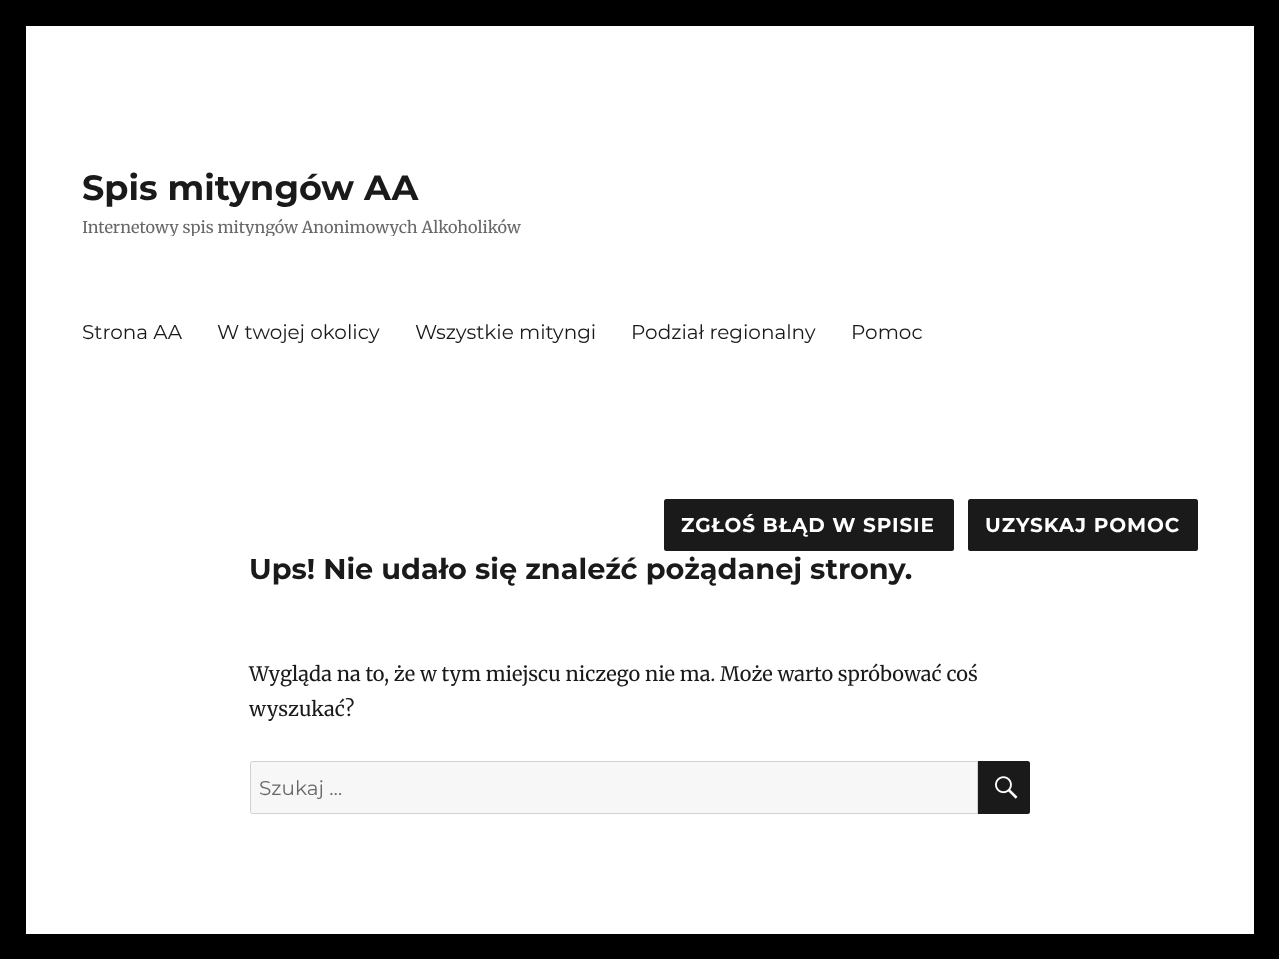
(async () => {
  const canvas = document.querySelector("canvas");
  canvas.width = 1279;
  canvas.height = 959;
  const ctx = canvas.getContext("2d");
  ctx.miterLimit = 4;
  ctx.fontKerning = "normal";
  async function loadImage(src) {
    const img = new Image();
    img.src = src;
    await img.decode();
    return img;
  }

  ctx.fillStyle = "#000000";
  ctx.fillRect(0, 0, 1279, 959);
  ctx.fillStyle = "#ffffff";
  ctx.fillRect(26, 26, 1228, 908);
  ctx.fillStyle = "#1a1a1a";
  ctx.beginPath();
  ctx.roundRect(664, 499, 290, 52, 2.5);
  ctx.fill();
  ctx.beginPath();
  ctx.roundRect(968, 499, 230, 52, 2.5);
  ctx.fill();
  ctx.fillStyle = "#f7f7f7";
  ctx.beginPath();
  ctx.roundRect(250.5, 761.5, 727, 52, [2, 0, 0, 2]);
  ctx.fill();
  ctx.strokeStyle = "#d1d1d1";
  ctx.stroke();
  ctx.fillStyle = "#1a1a1a";
  ctx.beginPath();
  ctx.roundRect(978, 761, 52, 53, [0, 2.5, 2.5, 0]);
  ctx.fill();
  ctx.drawImage(await loadImage("img/1.png"), 995, 776, 23, 23);
  ctx.font = "bold 35px Montserrat";
  ctx.fillText("Spis mityngów AA", 82, 200);
  ctx.save();
  ctx.beginPath();
  ctx.rect(83, 166, 438, 70);
  ctx.clip();
  ctx.font = "16.25px Merriweather";
  ctx.fillStyle = "#686868";
  ctx.fillText("Internetowy spis mityngów Anonimowych Alkoholików", 82, 233);
  ctx.restore();
  ctx.font = "20px Montserrat";
  for (const [text, x, y] of [
    ["Strona AA", 82, 339],
    ["W twojej okolicy", 217, 339],
    ["Wszystkie mityngi", 415, 339],
    ["Podział regionalny", 631, 339],
    ["Pomoc", 851, 339],
  ]) {
    ctx.fillText(text, x, y);
  }
  ctx.letterSpacing = "0.9px";
  ctx.font = "bold 20px Montserrat";
  ctx.fillStyle = "#ffffff";
  ctx.fillText("ZGŁOŚ BŁĄD W SPISIE", 681, 532);
  ctx.fillText("UZYSKAJ POMOC", 985, 532);
  ctx.letterSpacing = "0px";
  ctx.font = "bold 28.75px Montserrat";
  ctx.fillStyle = "#1a1a1a";
  ctx.fillText("Ups! Nie udało się znaleźć pożądanej strony.", 249, 579);
  ctx.font = "20px Merriweather";
  ctx.fillText("Wygląda na to, że w tym miejscu niczego nie ma. Może warto spróbować coś", 249, 681);
  ctx.fillText("wyszukać?", 249, 716);
  ctx.font = "20px Montserrat";
  ctx.fillStyle = "#686868";
  ctx.fillText("Szukaj …", 259, 795);
})();
